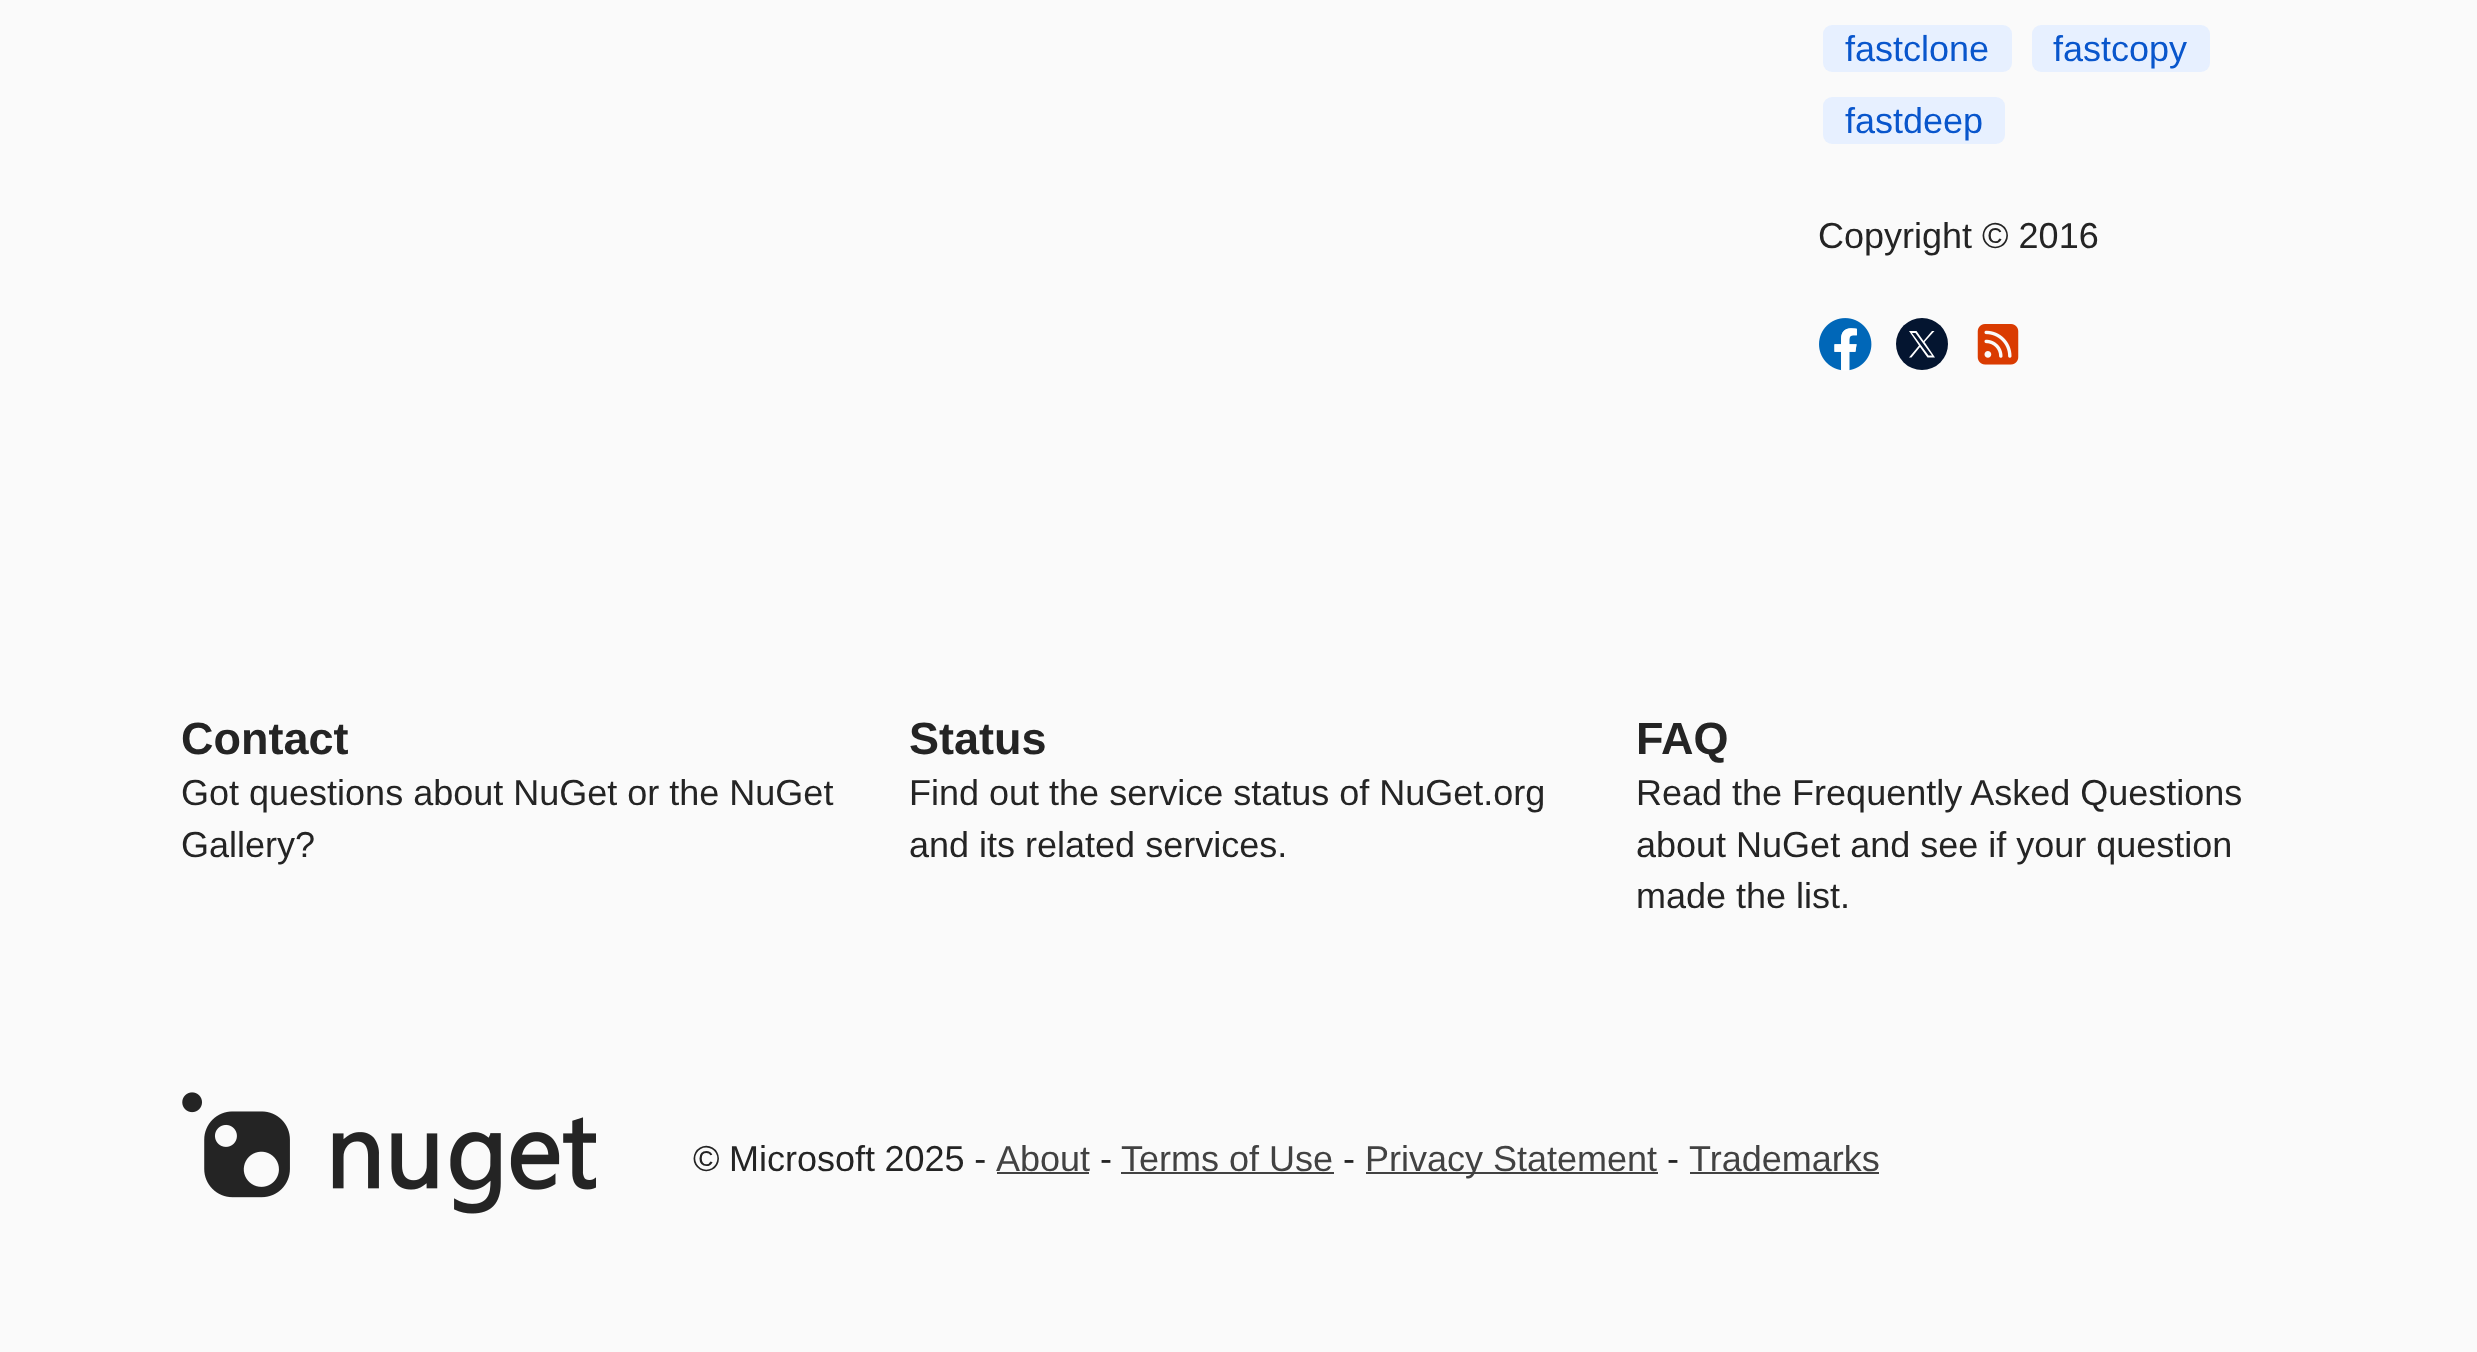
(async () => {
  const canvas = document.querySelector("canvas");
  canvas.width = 2477;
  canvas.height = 1352;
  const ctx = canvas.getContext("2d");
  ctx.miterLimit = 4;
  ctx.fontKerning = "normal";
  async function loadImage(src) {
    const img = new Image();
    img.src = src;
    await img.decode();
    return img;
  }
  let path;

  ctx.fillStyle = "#fafafa";
  ctx.fillRect(0, 0, 2477, 1352);
  ctx.fillStyle = "#e7f0ff";
  ctx.beginPath();
  ctx.roundRect(1823, 25, 189, 47, 9);
  ctx.fill();
  ctx.beginPath();
  ctx.roundRect(2032, 25, 178, 47, 9);
  ctx.fill();
  ctx.beginPath();
  ctx.roundRect(1823, 97, 182, 47, 9);
  ctx.fill();
  ctx.drawImage(await loadImage("img/1.png"), 1819, 318, 53, 53);
  ctx.fillStyle = "#041530";
  ctx.beginPath();
  ctx.arc(1922, 344, 26, 0, Math.PI * 2);
  ctx.fill();
  ctx.fillStyle = "#ffffff";
  path = new Path2D("M1924.5 342L1934.5 331H1932L1923.5 341L1916.5 331H1909L1919 345.5L1909 357.5H1911.5L1920 347L1927.5 357.5H1935ZM1912 333H1915.5L1932 355.5H1928.5Z");
  ctx.fill(path);
  ctx.drawImage(await loadImage("img/2.png"), 1977, 324, 42, 41);
  ctx.drawImage(await loadImage("img/3.png"), 182, 1092, 414, 122);
  for (const [x, y, w, h, color] of [
    [997, 1172, 92, 2, "#424242"],
    [1121, 1172, 213, 2, "#424242"],
    [1366, 1172, 292, 2, "#424242"],
    [1690, 1172, 189, 2, "#424242"],
  ]) {
    ctx.fillStyle = color;
    ctx.fillRect(x, y, w, h);
  }
  ctx.font = "36px Liberation Sans";
  ctx.fillStyle = "#0956cc";
  for (const [text, x, y] of [
    ["fastclone", 1845, 61],
    ["fastcopy", 2053, 61],
    ["fastdeep", 1845, 133],
  ]) {
    ctx.fillText(text, x, y);
  }
  ctx.fillStyle = "#242424";
  ctx.fillText("Copyright © 2016", 1818, 248);
  ctx.font = "bold 45px Liberation Sans";
  ctx.fillText("Contact", 181, 754);
  ctx.font = "36px Liberation Sans";
  ctx.fillText("Got questions about NuGet or the NuGet", 181, 805);
  ctx.fillText("Gallery?", 181, 857);
  ctx.font = "bold 45px Liberation Sans";
  ctx.fillText("Status", 909, 754);
  ctx.font = "36px Liberation Sans";
  ctx.fillText("Find out the service status of NuGet.org", 909, 805);
  ctx.fillText("and its related services.", 909, 857);
  ctx.font = "bold 45px Liberation Sans";
  ctx.fillText("FAQ", 1636, 754);
  ctx.font = "36px Liberation Sans";
  for (const [text, x, y] of [
    ["Read the Frequently Asked Questions", 1636, 805],
    ["about NuGet and see if your question", 1636, 857],
    ["made the list.", 1636, 908],
  ]) {
    ctx.fillText(text, x, y);
  }
  ctx.wordSpacing = "-0.5px";
  ctx.fillText("© Microsoft 2025 -", 693, 1171);
  ctx.wordSpacing = "0px";
  ctx.fillStyle = "#424242";
  ctx.fillText("About", 996, 1171);
  ctx.fillStyle = "#242424";
  ctx.fillText("-", 1100, 1171);
  ctx.fillStyle = "#424242";
  ctx.fillText("Terms of Use", 1121, 1171);
  ctx.fillStyle = "#242424";
  ctx.fillText("-", 1343, 1171);
  ctx.fillStyle = "#424242";
  ctx.fillText("Privacy Statement", 1365, 1171);
  ctx.fillStyle = "#242424";
  ctx.fillText("-", 1667, 1171);
  ctx.fillStyle = "#424242";
  ctx.fillText("Trademarks", 1689, 1171);
})();
